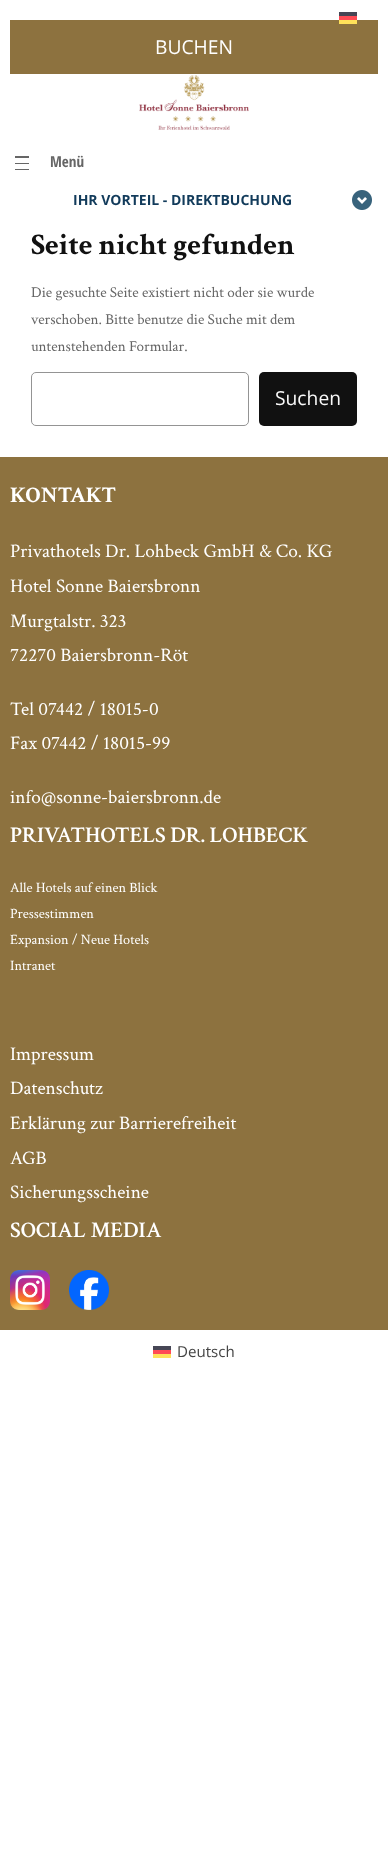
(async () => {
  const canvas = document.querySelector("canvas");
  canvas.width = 388;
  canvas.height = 1875;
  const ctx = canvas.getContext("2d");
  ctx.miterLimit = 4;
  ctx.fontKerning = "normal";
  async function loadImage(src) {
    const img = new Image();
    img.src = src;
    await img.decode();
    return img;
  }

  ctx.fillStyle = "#ffffff";
  ctx.fillRect(0, 0, 388, 1875);
  for (const [x, y, w, h, color] of [
    [339, 12, 18, 4, "#464655"],
    [339, 16, 18, 4, "#ff4b55"],
    [10, 20, 368, 54, "#8d723f"],
    [339, 20, 18, 4, "#ffe15a"],
  ]) {
    ctx.fillStyle = color;
    ctx.fillRect(x, y, w, h);
  }
  ctx.drawImage(await loadImage("img/1.png"), 139, 75, 110, 55);
  for (const [x, y, w, h, color] of [
    [15, 156, 14, 2, "#666666"],
    [15, 163, 14, 1, "#666666"],
    [15, 169, 14, 1, "#666666"],
  ]) {
    ctx.fillStyle = color;
    ctx.fillRect(x, y, w, h);
  }
  ctx.beginPath();
  ctx.roundRect(31.5, 372.5, 217, 53, 4.5);
  ctx.strokeStyle = "#949494";
  ctx.stroke();
  ctx.fillStyle = "#111111";
  ctx.beginPath();
  ctx.roundRect(259, 372, 98, 54, 5);
  ctx.fill();
  ctx.fillStyle = "#8d723f";
  ctx.fillRect(0, 457, 388, 873);
  ctx.drawImage(await loadImage("img/2.png"), 10, 1270, 40, 40);
  ctx.drawImage(await loadImage("img/3.png"), 69, 1270, 40, 40);
  ctx.drawImage(await loadImage("img/4.png"), 352, 190, 20, 20);
  for (const [x, y, w, h, color] of [
    [153, 1346, 18, 4, "#464655"],
    [153, 1350, 18, 4, "#ff4b55"],
    [153, 1354, 18, 4, "#ffe15a"],
  ]) {
    ctx.fillStyle = color;
    ctx.fillRect(x, y, w, h);
  }
  ctx.font = "19.25px 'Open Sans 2'";
  ctx.fillStyle = "#ffffff";
  ctx.fillText("BUCHEN", 155, 54);
  ctx.font = "bold 15.1px Open Sans Condensed";
  ctx.fillStyle = "#666666";
  ctx.fillText("Menü", 50, 167);
  ctx.font = "bold 30px Crimson Text";
  ctx.fillStyle = "#111111";
  ctx.fillText("Seite nicht gefunden", 31, 254);
  ctx.font = "15.1px Crimson Text";
  ctx.fillStyle = "#666666";
  for (const [text, x, y] of [
    ["Die gesuchte Seite existiert nicht oder sie wurde", 31, 297],
    ["verschoben. Bitte benutze die Suche mit dem", 31, 324],
    ["untenstehenden Formular.", 31, 351],
  ]) {
    ctx.fillText(text, x, y);
  }
  ctx.font = "19.25px 'Open Sans 2'";
  ctx.fillStyle = "#f9f9f9";
  ctx.fillText("Suchen", 275, 405);
  ctx.font = "bold 22.4px Crimson Text";
  ctx.fillStyle = "#ffffff";
  ctx.fillText("KONTAKT", 10, 502);
  ctx.font = "19.25px Crimson Text";
  for (const [text, x, y] of [
    ["Privathotels Dr. Lohbeck GmbH & Co. KG", 10, 557],
    ["Hotel Sonne Baiersbronn", 10, 592],
    ["Murgtalstr. 323", 10, 627],
    ["72270 Baiersbronn-Röt", 10, 661],
    ["Tel 07442 / 18015-0", 10, 715],
    ["Fax 07442 / 18015-99", 10, 749],
    ["info@sonne-baiersbronn.de", 10, 803],
  ]) {
    ctx.fillText(text, x, y);
  }
  ctx.font = "600 22.4px Crimson Text";
  ctx.fillText("PRIVATHOTELS DR. LOHBECK", 10, 842);
  ctx.font = "14.25px Crimson Text";
  for (const [text, x, y] of [
    ["Alle Hotels auf einen Blick", 10, 892],
    ["Pressestimmen", 10, 918],
    ["Expansion / Neue Hotels", 10, 944],
    ["Intranet", 10, 970],
  ]) {
    ctx.fillText(text, x, y);
  }
  ctx.font = "19.25px Crimson Text";
  for (const [text, x, y] of [
    ["Impressum", 10, 1060],
    ["Datenschutz", 10, 1094],
    ["Erklärung zur Barrierefreiheit", 10, 1129],
    ["AGB", 10, 1164],
    ["Sicherungsscheine", 10, 1198],
  ]) {
    ctx.fillText(text, x, y);
  }
  ctx.font = "600 22.4px Crimson Text";
  ctx.fillText("SOCIAL MEDIA", 10, 1237);
  ctx.font = "bold 14px Open Sans";
  ctx.fillStyle = "#123b5b";
  ctx.fillText("IHR VORTEIL - DIREKTBUCHUNG", 73, 205);
  ctx.font = "15.1px Open Sans";
  ctx.fillStyle = "#444444";
  ctx.fillText("Deutsch", 177, 1357);
})();
